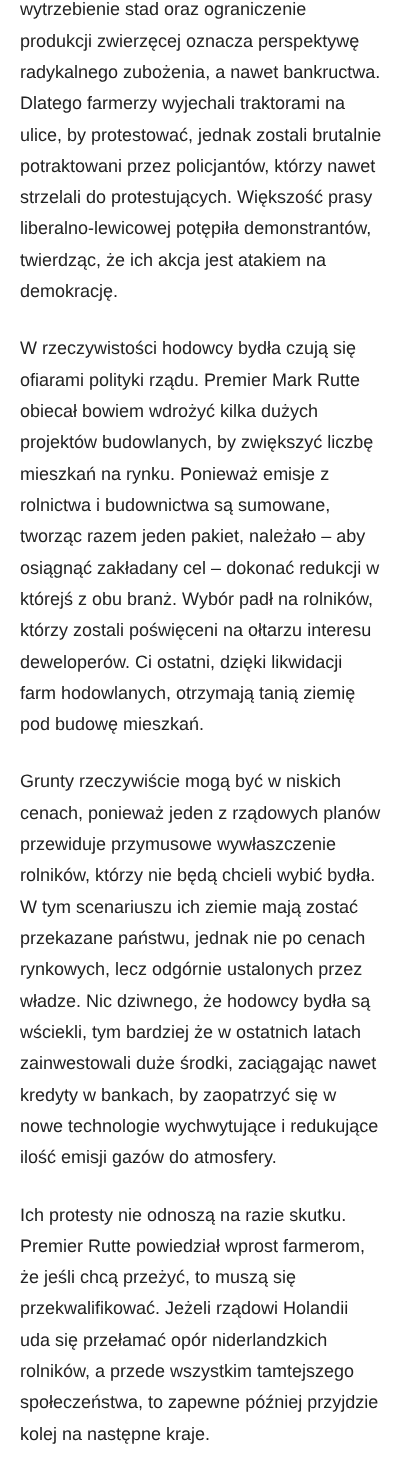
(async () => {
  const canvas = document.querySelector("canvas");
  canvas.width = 403;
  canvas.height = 1463;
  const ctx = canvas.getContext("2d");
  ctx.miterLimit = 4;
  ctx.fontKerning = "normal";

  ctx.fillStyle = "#ffffff";
  ctx.fillRect(0, 0, 403, 1463);
  ctx.font = "18px Liberation Sans";
  ctx.fillStyle = "#222222";
  for (const [text, x, y] of [
    ["wytrzebienie stad oraz ograniczenie", 20, 15],
    ["produkcji zwierzęcej oznacza perspektywę", 20, 47],
    ["radykalnego zubożenia, a nawet bankructwa.", 20, 78],
    ["Dlatego farmerzy wyjechali traktorami na", 20, 109],
    ["ulice, by protestować, jednak zostali brutalnie", 20, 141],
    ["potraktowani przez policjantów, którzy nawet", 20, 172],
    ["strzelali do protestujących. Większość prasy", 20, 203],
    ["liberalno-lewicowej potępiła demonstrantów,", 20, 234],
    ["twierdząc, że ich akcja jest atakiem na", 20, 266],
    ["demokrację.", 20, 297],
    ["W rzeczywistości hodowcy bydła czują się", 20, 354],
    ["ofiarami polityki rządu. Premier Mark Rutte", 20, 386],
    ["obiecał bowiem wdrożyć kilka dużych", 20, 417],
    ["projektów budowlanych, by zwiększyć liczbę", 20, 448],
    ["mieszkań na rynku. Ponieważ emisje z", 20, 480],
    ["rolnictwa i budownictwa są sumowane,", 20, 511],
    ["tworząc razem jeden pakiet, należało – aby", 20, 542],
    ["osiągnąć zakładany cel – dokonać redukcji w", 20, 574],
    ["którejś z obu branż. Wybór padł na rolników,", 20, 605],
    ["którzy zostali poświęceni na ołtarzu interesu", 20, 636],
    ["deweloperów. Ci ostatni, dzięki likwidacji", 20, 668],
    ["farm hodowlanych, otrzymają tanią ziemię", 20, 699],
    ["pod budowę mieszkań.", 20, 730],
    ["Grunty rzeczywiście mogą być w niskich", 20, 787],
    ["cenach, ponieważ jeden z rządowych planów", 20, 819],
    ["przewiduje przymusowe wywłaszczenie", 20, 850],
    ["rolników, którzy nie będą chcieli wybić bydła.", 20, 881],
    ["W tym scenariuszu ich ziemie mają zostać", 20, 913],
    ["przekazane państwu, jednak nie po cenach", 20, 944],
    ["rynkowych, lecz odgórnie ustalonych przez", 20, 975],
    ["władze. Nic dziwnego, że hodowcy bydła są", 20, 1007],
    ["wściekli, tym bardziej że w ostatnich latach", 20, 1038],
    ["zainwestowali duże środki, zaciągając nawet", 20, 1069],
    ["kredyty w bankach, by zaopatrzyć się w", 20, 1101],
    ["nowe technologie wychwytujące i redukujące", 20, 1132],
    ["ilość emisji gazów do atmosfery.", 20, 1163],
    ["Ich protesty nie odnoszą na razie skutku.", 20, 1221],
    ["Premier Rutte powiedział wprost farmerom,", 20, 1252],
    ["że jeśli chcą przeżyć, to muszą się", 20, 1283],
    ["przekwalifikować. Jeżeli rządowi Holandii", 20, 1314],
    ["uda się przełamać opór niderlandzkich", 20, 1346],
    ["rolników, a przede wszystkim tamtejszego", 20, 1377],
    ["społeczeństwa, to zapewne później przyjdzie", 20, 1408],
    ["kolej na następne kraje.", 20, 1440],
  ]) {
    ctx.fillText(text, x, y);
  }
})();
